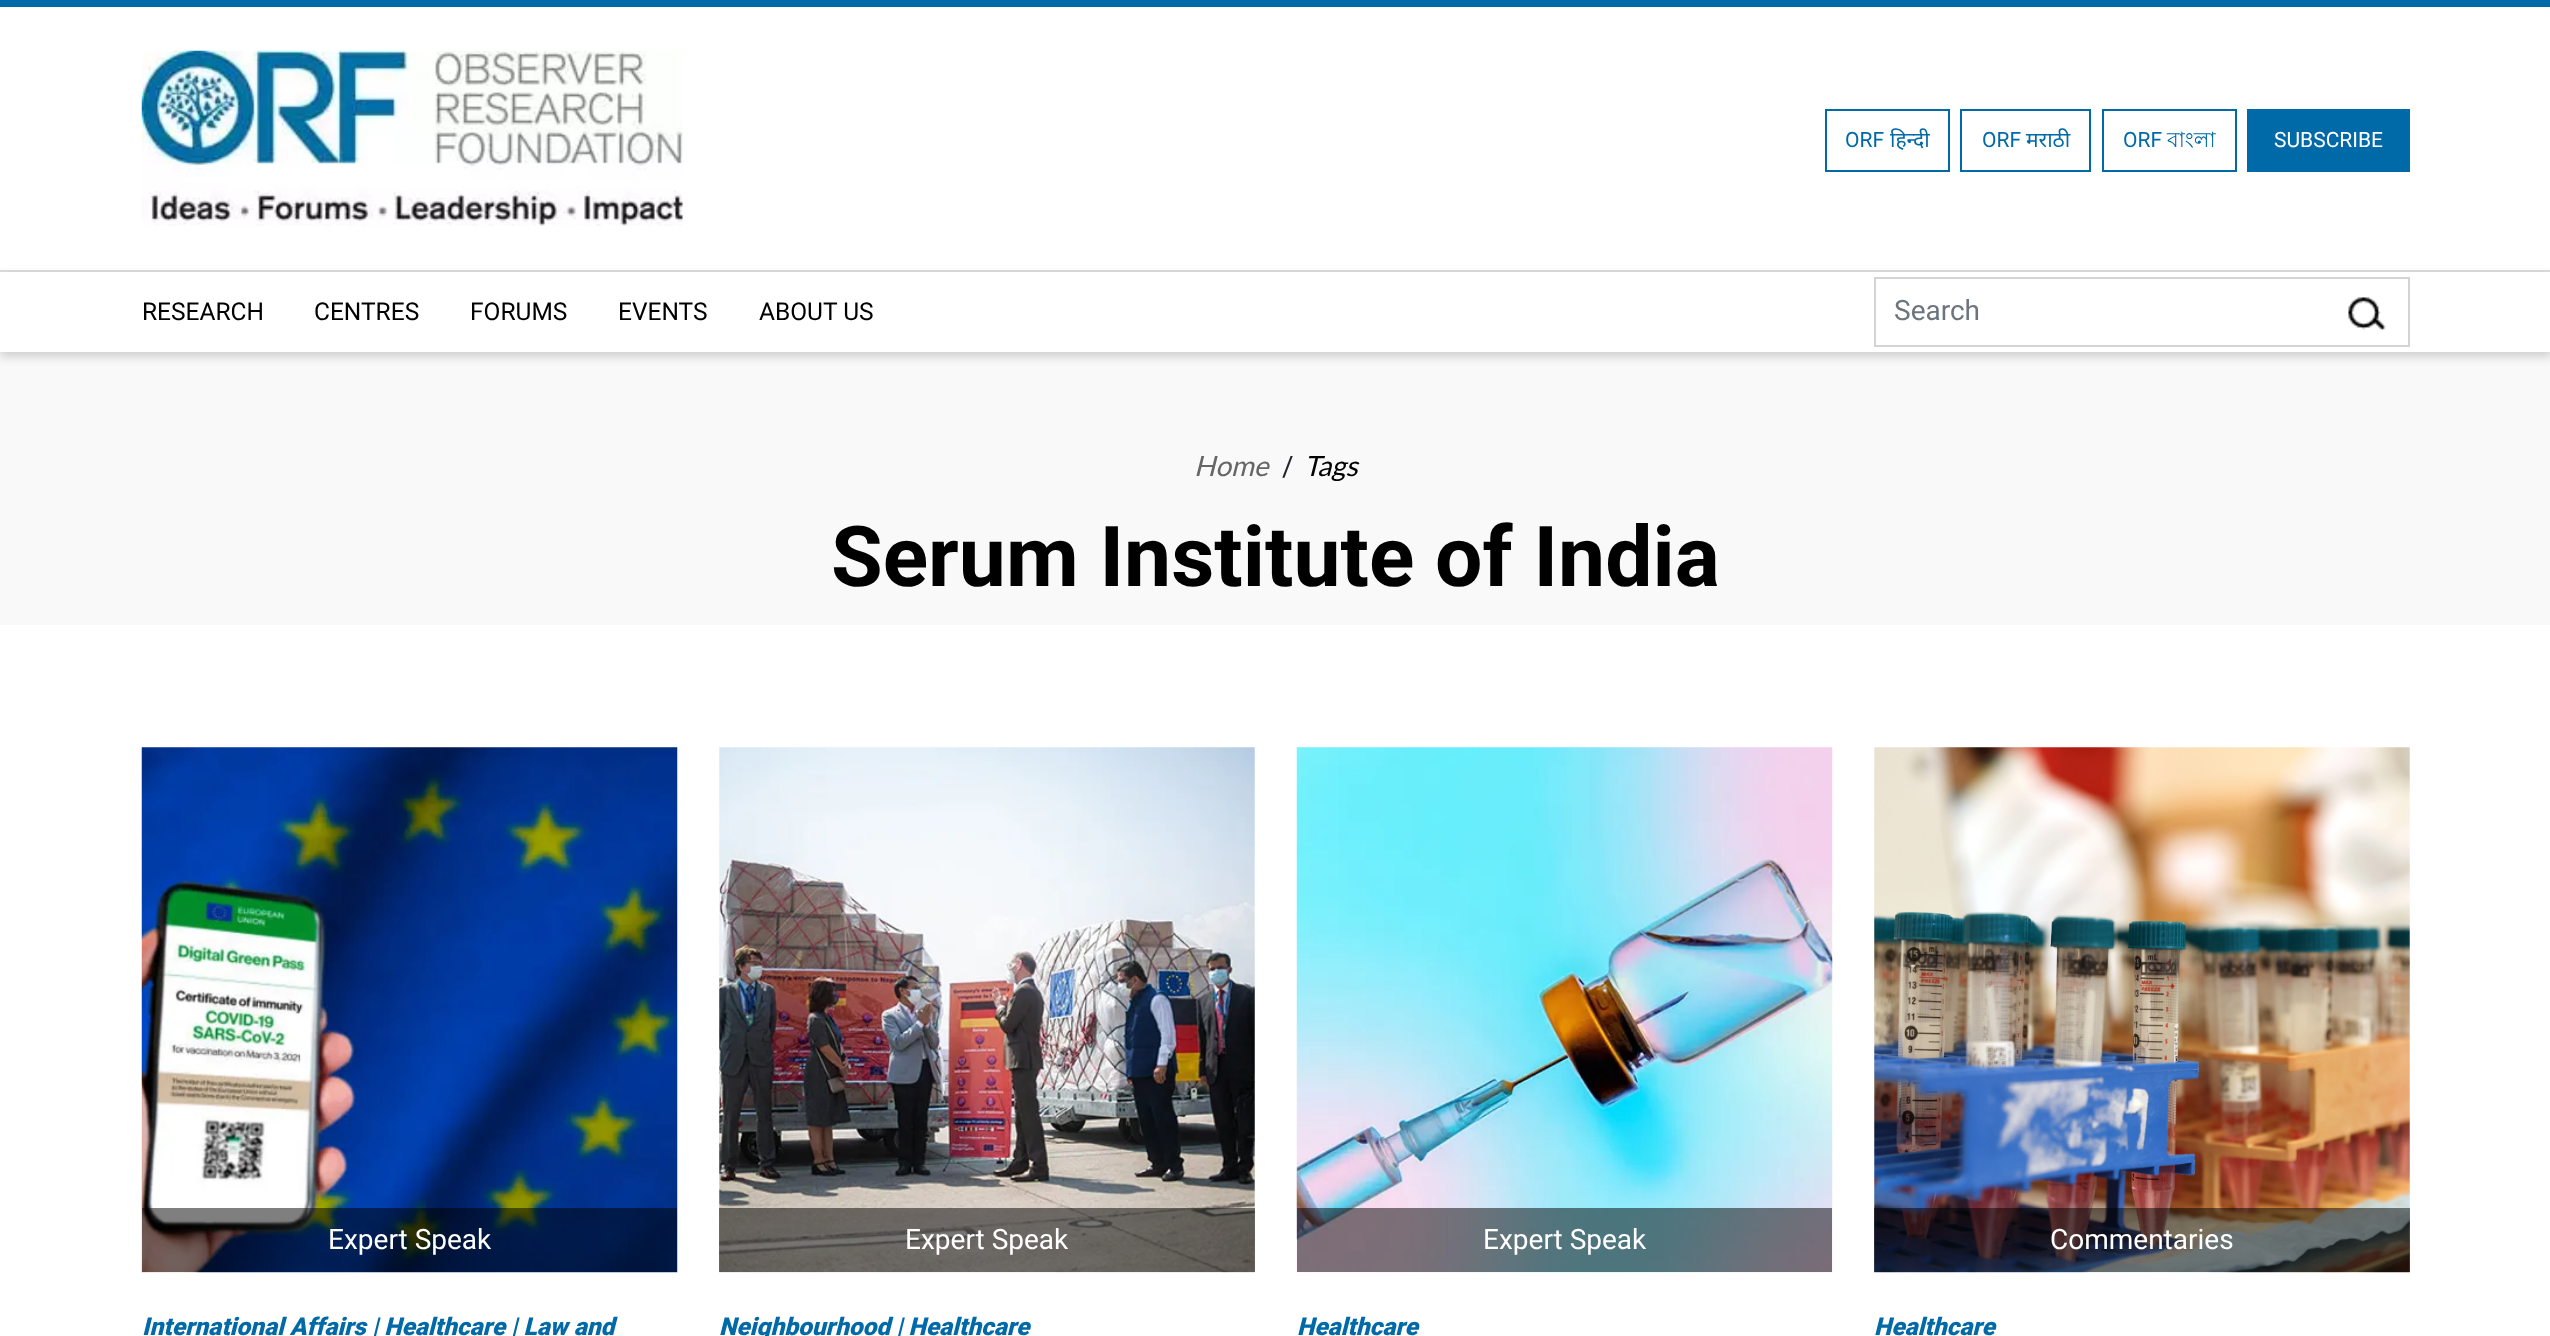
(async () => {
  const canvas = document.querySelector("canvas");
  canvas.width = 2550;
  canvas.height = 1336;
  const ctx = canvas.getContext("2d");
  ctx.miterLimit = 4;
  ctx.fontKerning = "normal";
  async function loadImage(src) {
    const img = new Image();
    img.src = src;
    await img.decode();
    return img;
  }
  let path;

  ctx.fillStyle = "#f9f9f9";
  ctx.fillRect(0, 0, 2550, 1336);
  ctx.fillStyle = "#ffffff";
  ctx.fillRect(0, 7, 2550, 345);
  ctx.fillStyle = "#0069a7";
  ctx.fillRect(0, 0, 2550, 7);
  ctx.drawImage(await loadImage("img/1.png"), 141, 50, 542, 176);
  ctx.strokeStyle = "#0069a7";
  ctx.lineWidth = 2;
  ctx.strokeRect(1826, 110, 123, 61);
  ctx.strokeRect(1961, 110, 129, 61);
  ctx.strokeRect(2103, 110, 133, 61);
  ctx.fillRect(2247, 109, 163, 63);
  ctx.save();
  path = new Path2D("M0 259H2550V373H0ZM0 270H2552V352H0Z");
  ctx.clip(path, "evenodd");
  ctx.fillStyle = "rgba(0, 0, 0, 0.16)";
  ctx.filter = "blur(5px)";
  ctx.beginPath();
  ctx.rect(0, 275, 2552, 82);
  ctx.fill();
  ctx.filter = "none";
  ctx.restore();
  ctx.fillStyle = "#d8d8d8";
  ctx.fillRect(0, 270, 2550, 2);
  ctx.strokeStyle = "#d4d4d4";
  ctx.strokeRect(1875, 278, 534, 68);
  ctx.drawImage(await loadImage("img/2.png"), 2348, 297, 38, 33);
  ctx.fillStyle = "#ffffff";
  ctx.fillRect(0, 625, 2550, 711);
  ctx.drawImage(await loadImage("img/3.png"), 141, 747, 537, 526);
  ctx.fillStyle = "rgba(0, 0, 0, 0.5)";
  ctx.fillRect(142, 1208, 535, 64);
  ctx.drawImage(await loadImage("img/4.png"), 719, 747, 536, 526);
  ctx.fillRect(719, 1208, 536, 64);
  ctx.drawImage(await loadImage("img/5.png"), 1296, 747, 537, 526);
  ctx.fillRect(1297, 1208, 535, 64);
  ctx.drawImage(await loadImage("img/6.png"), 1874, 747, 536, 526);
  ctx.fillRect(1874, 1208, 536, 64);
  ctx.font = "21px Roboto";
  ctx.fillStyle = "#0069a7";
  ctx.fillText("ORF", 1845, 147);
  ctx.font = "21px Noto Sans";
  ctx.fillText("हिन्दी", 1890, 147);
  ctx.font = "21px Roboto";
  ctx.fillText("ORF", 1982, 147);
  ctx.font = "21px Noto Sans";
  ctx.fillText("मराठी", 2026, 147);
  ctx.font = "21px Roboto";
  ctx.fillText("ORF", 2123, 147);
  ctx.font = "21px Lohit Bengali";
  ctx.fillText("বাংলা", 2167, 147);
  ctx.font = "21px Roboto";
  ctx.fillStyle = "#ffffff";
  ctx.fillText("SUBSCRIBE", 2274, 147);
  ctx.font = "24.5px Roboto";
  ctx.fillStyle = "#000000";
  for (const [text, x, y] of [
    ["RESEARCH", 142, 320],
    ["CENTRES", 314, 320],
    ["FORUMS", 470, 320],
    ["EVENTS", 618, 320],
    ["ABOUT US", 759, 320],
  ]) {
    ctx.fillText(text, x, y);
  }
  ctx.font = "28px Roboto";
  ctx.fillStyle = "#6c757d";
  ctx.fillText("Search", 1894, 320);
  ctx.font = "italic 28px Lato";
  ctx.fillStyle = "#666666";
  ctx.fillText("Home", 1194, 476);
  ctx.font = "28px Roboto";
  ctx.fillStyle = "#212529";
  ctx.fillText("/", 1282, 476);
  ctx.font = "italic 28px Lato";
  ctx.fillStyle = "#000000";
  ctx.fillText("Tags", 1304, 476);
  ctx.font = "bold 84px Roboto";
  ctx.fillText("Serum Institute of India", 831, 586);
  ctx.font = "28px Roboto";
  ctx.fillStyle = "#ffffff";
  ctx.fillText("Expert Speak", 328, 1249);
  ctx.font = "italic 900 24.5px Roboto";
  ctx.fillStyle = "#0069a7";
  ctx.fillText("International Affairs | Healthcare | Law and", 142, 1335);
  ctx.font = "28px Roboto";
  ctx.fillStyle = "#ffffff";
  ctx.fillText("Expert Speak", 905, 1249);
  ctx.font = "italic 900 24.5px Roboto";
  ctx.fillStyle = "#0069a7";
  ctx.fillText("Neighbourhood | Healthcare", 719, 1335);
  ctx.font = "28px Roboto";
  ctx.fillStyle = "#ffffff";
  ctx.fillText("Expert Speak", 1483, 1249);
  ctx.font = "italic 900 24.5px Roboto";
  ctx.fillStyle = "#0069a7";
  ctx.fillText("Healthcare", 1297, 1335);
  ctx.font = "28px Roboto";
  ctx.fillStyle = "#ffffff";
  ctx.fillText("Commentaries", 2050, 1249);
  ctx.font = "italic 900 24.5px Roboto";
  ctx.fillStyle = "#0069a7";
  ctx.fillText("Healthcare", 1874, 1335);
})();
